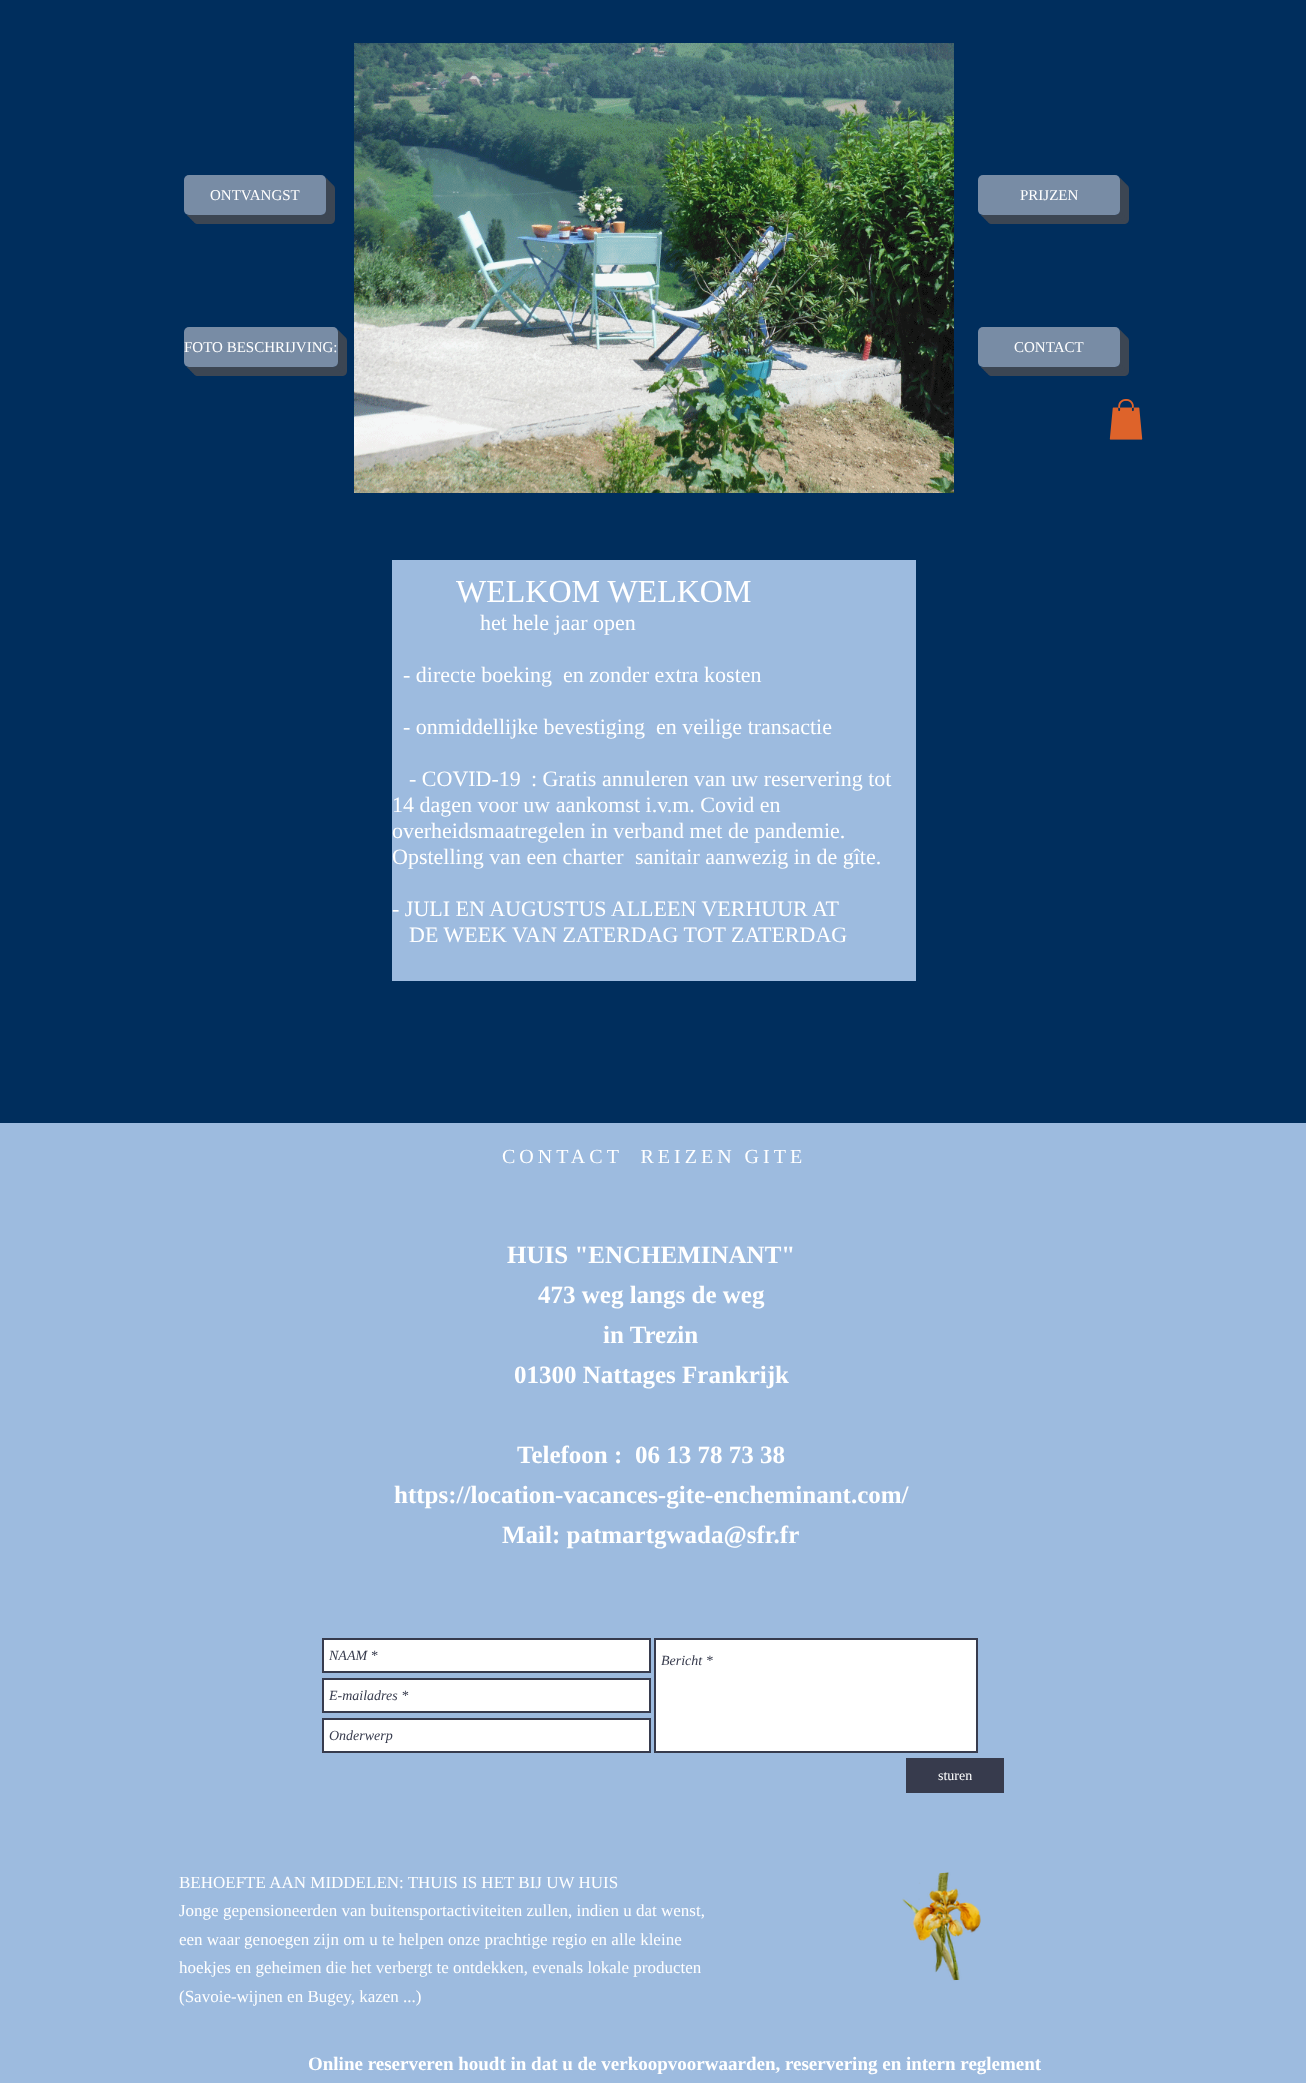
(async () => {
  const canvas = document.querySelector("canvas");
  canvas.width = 1306;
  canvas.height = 2083;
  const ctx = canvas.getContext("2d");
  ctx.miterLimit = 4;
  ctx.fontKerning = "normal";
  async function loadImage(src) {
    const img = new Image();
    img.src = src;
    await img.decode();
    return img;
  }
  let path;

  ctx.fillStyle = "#9dbbdf";
  ctx.fillRect(0, 0, 1306, 2083);
  ctx.fillStyle = "#002e5d";
  ctx.fillRect(0, 0, 1306, 1123);
  ctx.fillStyle = "#3c4653";
  path = new Path2D("M193 215V219C193 222 195 224 198 224H330C333 224 335 222 335 219V189C335 186 333 184 330 184H326V210C326 213 324 215 321 215Z");
  ctx.fill(path);
  path = new Path2D("M191 215V217C191 220 193 222 196 222H328C331 222 333 220 333 217V187C333 184 331 182 328 182H326V210C326 213 324 215 321 215Z");
  ctx.fill(path);
  path = new Path2D("M189 215C189 218 191 220 194 220H326C329 220 331 218 331 215V185C331 182 329 180 326 180V210C326 213 324 215 321 215Z");
  ctx.fill(path);
  path = new Path2D("M187 215C188 217 190 218 192 218H324C327 218 329 216 329 213V183C329 181 328 179 326 178V211C324 219 306 215 299 215Z");
  ctx.fill(path);
  path = new Path2D("M186 214C187 215 188 216 190 216H322C325 216 327 214 327 211V181C327 179 326 178 325 177C326 178 326 179 326 180V210C326 213 324 215 321 215H189C188 215 187 215 186 214Z");
  ctx.fill(path);
  ctx.fillStyle = "#788ca5";
  ctx.beginPath();
  ctx.roundRect(184, 175, 142, 40, 5);
  ctx.fill();
  ctx.drawImage(await loadImage("img/1.png"), 354, 43, 600, 450);
  ctx.fillStyle = "#3c4653";
  path = new Path2D("M987 215V219C987 222 989 224 992 224H1124C1127 224 1129 222 1129 219V189C1129 186 1127 184 1124 184H1120V210C1120 213 1118 215 1115 215Z");
  ctx.fill(path);
  path = new Path2D("M985 215V217C985 220 987 222 990 222H1122C1125 222 1127 220 1127 217V187C1127 184 1125 182 1122 182H1120V210C1120 213 1118 215 1115 215Z");
  ctx.fill(path);
  path = new Path2D("M983 215C983 218 985 220 988 220H1120C1123 220 1125 218 1125 215V185C1125 182 1123 180 1120 180V210C1120 213 1118 215 1115 215Z");
  ctx.fill(path);
  path = new Path2D("M981 215C982 217 984 218 986 218H1118C1121 218 1123 216 1123 213V183C1123 181 1122 179 1120 178V211C1118 219 1100 215 1093 215Z");
  ctx.fill(path);
  path = new Path2D("M980 214C981 215 982 216 984 216H1116C1119 216 1121 214 1121 211V181C1121 179 1120 178 1119 177C1120 178 1120 179 1120 180V210C1120 213 1118 215 1115 215H983C982 215 981 215 980 214Z");
  ctx.fill(path);
  ctx.fillStyle = "#788ca5";
  ctx.beginPath();
  ctx.roundRect(978, 175, 142, 40, 5);
  ctx.fill();
  ctx.fillStyle = "#3c4653";
  path = new Path2D("M193 367V371C193 374 195 376 198 376H342C345 376 347 374 347 371V341C347 338 345 336 342 336H338V362C338 365 336 367 333 367Z");
  ctx.fill(path);
  path = new Path2D("M191 367V369C191 372 193 374 196 374H340C343 374 345 372 345 369V339C345 336 343 334 340 334H338V362C338 365 336 367 333 367Z");
  ctx.fill(path);
  path = new Path2D("M189 367C189 370 191 372 194 372H338C341 372 343 370 343 367V337C343 334 341 332 338 332V362C338 365 336 367 333 367Z");
  ctx.fill(path);
  path = new Path2D("M187 367C188 369 190 370 192 370H336C339 370 341 368 341 365V335C341 333 340 331 338 330V352C338 356 340 367 333 367Z");
  ctx.fill(path);
  path = new Path2D("M186 366C187 367 188 368 190 368H334C337 368 339 366 339 363V333C339 331 338 330 337 329C338 330 338 331 338 332V362C338 365 336 367 333 367H189C188 367 187 367 186 366Z");
  ctx.fill(path);
  ctx.fillStyle = "#788ca5";
  ctx.beginPath();
  ctx.roundRect(184, 327, 154, 40, 5);
  ctx.fill();
  ctx.fillStyle = "#3c4653";
  path = new Path2D("M987 367V371C987 374 989 376 992 376H1124C1127 376 1129 374 1129 371V341C1129 338 1127 336 1124 336H1120V362C1120 365 1118 367 1115 367Z");
  ctx.fill(path);
  path = new Path2D("M985 367V369C985 372 987 374 990 374H1122C1125 374 1127 372 1127 369V339C1127 336 1125 334 1122 334H1120V362C1120 365 1118 367 1115 367Z");
  ctx.fill(path);
  path = new Path2D("M983 367C983 370 985 372 988 372H1120C1123 372 1125 370 1125 367V337C1125 334 1123 332 1120 332V362C1120 365 1118 367 1115 367Z");
  ctx.fill(path);
  path = new Path2D("M981 367C982 369 984 370 986 370H1118C1121 370 1123 368 1123 365V335C1123 333 1122 331 1120 330V363C1118 371 1100 367 1093 367Z");
  ctx.fill(path);
  path = new Path2D("M980 366C981 367 982 368 984 368H1116C1119 368 1121 366 1121 363V333C1121 331 1120 330 1119 329C1120 330 1120 331 1120 332V362C1120 365 1118 367 1115 367H983C982 367 981 367 980 366Z");
  ctx.fill(path);
  ctx.fillStyle = "#788ca5";
  ctx.beginPath();
  ctx.roundRect(978, 327, 142, 40, 5);
  ctx.fill();
  ctx.drawImage(await loadImage("img/2.png"), 1109, 399, 34, 41);
  ctx.fillStyle = "#9dbbdf";
  ctx.fillRect(392, 560, 524, 421);
  ctx.fillStyle = "#ffffff";
  ctx.beginPath();
  ctx.rect(323, 1639, 327, 33);
  ctx.fill();
  ctx.strokeStyle = "#373b4d";
  ctx.lineWidth = 2;
  ctx.stroke();
  ctx.beginPath();
  ctx.rect(655, 1639, 322, 113);
  ctx.fill();
  ctx.stroke();
  ctx.beginPath();
  ctx.rect(323, 1679, 327, 33);
  ctx.fill();
  ctx.stroke();
  ctx.beginPath();
  ctx.rect(323, 1719, 327, 33);
  ctx.fill();
  ctx.stroke();
  ctx.fillStyle = "#373b4d";
  ctx.fillRect(906, 1758, 98, 35);
  ctx.drawImage(await loadImage("img/3.png"), 902, 1872, 79, 109);
  ctx.font = "15px Liberation Serif";
  ctx.fillStyle = "#ffffff";
  for (const [text, x, y] of [
    ["ONTVANGST", 210, 200],
    ["PRIJZEN", 1020, 200],
    ["FOTO BESCHRIJVING:", 184, 352],
    ["CONTACT", 1014, 352],
  ]) {
    ctx.fillText(text, x, y);
  }
  ctx.font = "32px Liberation Serif";
  ctx.fillText("WELKOM WELKOM", 456, 602);
  ctx.font = "22px Liberation Serif";
  for (const [text, x, y] of [
    ["het hele jaar open", 480, 630],
    ["- directe boeking", 403, 682],
    ["en zonder extra kosten", 563, 682],
    ["- onmiddellijke bevestiging", 403, 734],
    ["en veilige transactie", 656, 734],
    ["- COVID-19", 409, 786],
    [": Gratis annuleren van uw reservering tot", 531, 786],
    ["14 dagen voor uw aankomst i.v.m. Covid en", 392, 812],
    ["overheidsmaatregelen in verband met de pandemie.", 392, 838],
    ["Opstelling van een charter", 392, 864],
    ["sanitair aanwezig in de gîte.", 635, 864],
    ["- JULI EN AUGUSTUS ALLEEN VERHUUR AT", 392, 916],
    ["DE WEEK VAN ZATERDAG TOT ZATERDAG", 409, 942],
  ]) {
    ctx.fillText(text, x, y);
  }
  ctx.letterSpacing = "4px";
  ctx.font = "20px Liberation Serif";
  ctx.fillText("CONTACT  REIZEN GITE", 502, 1163);
  ctx.letterSpacing = "0px";
  ctx.font = "bold 25px Liberation Serif";
  for (const [text, x, y] of [
    ["HUIS \"ENCHEMINANT\"", 507, 1263],
    ["473 weg langs de weg", 538, 1303],
    ["in Trezin", 603, 1343],
    ["01300 Nattages Frankrijk", 514, 1383],
    ["Telefoon :", 517, 1463],
    ["06 13 78 73 38", 635, 1463],
    ["https://location-vacances-gite-encheminant.com/", 394, 1503],
    ["Mail: patmartgwada@sfr.fr", 502, 1543],
  ]) {
    ctx.fillText(text, x, y);
  }
  ctx.font = "italic 14px Liberation Serif";
  ctx.fillStyle = "#373b4d";
  for (const [text, x, y] of [
    ["NAAM *", 329, 1660],
    ["Bericht *", 661, 1665],
    ["E-mailadres *", 329, 1700],
    ["Onderwerp", 329, 1740],
  ]) {
    ctx.fillText(text, x, y);
  }
  ctx.font = "14px Liberation Serif";
  ctx.fillStyle = "#ffffff";
  ctx.fillText("sturen", 938, 1780);
  ctx.font = "17px Liberation Serif";
  for (const [text, x, y] of [
    ["BEHOEFTE AAN MIDDELEN: THUIS IS HET BIJ UW HUIS", 179, 1888],
    ["Jonge gepensioneerden van buitensportactiviteiten zullen, indien u dat wenst,", 179, 1916],
    ["een waar genoegen zijn om u te helpen onze prachtige regio en alle kleine", 179, 1945],
    ["hoekjes en geheimen die het verbergt te ontdekken, evenals lokale producten", 179, 1973],
    ["(Savoie-wijnen en Bugey, kazen ...)", 179, 2002],
  ]) {
    ctx.fillText(text, x, y);
  }
  ctx.font = "bold 19px Liberation Serif";
  ctx.fillText("Online reserveren houdt in dat u de verkoopvoorwaarden, reservering en intern reglement", 308, 2070);
})();
